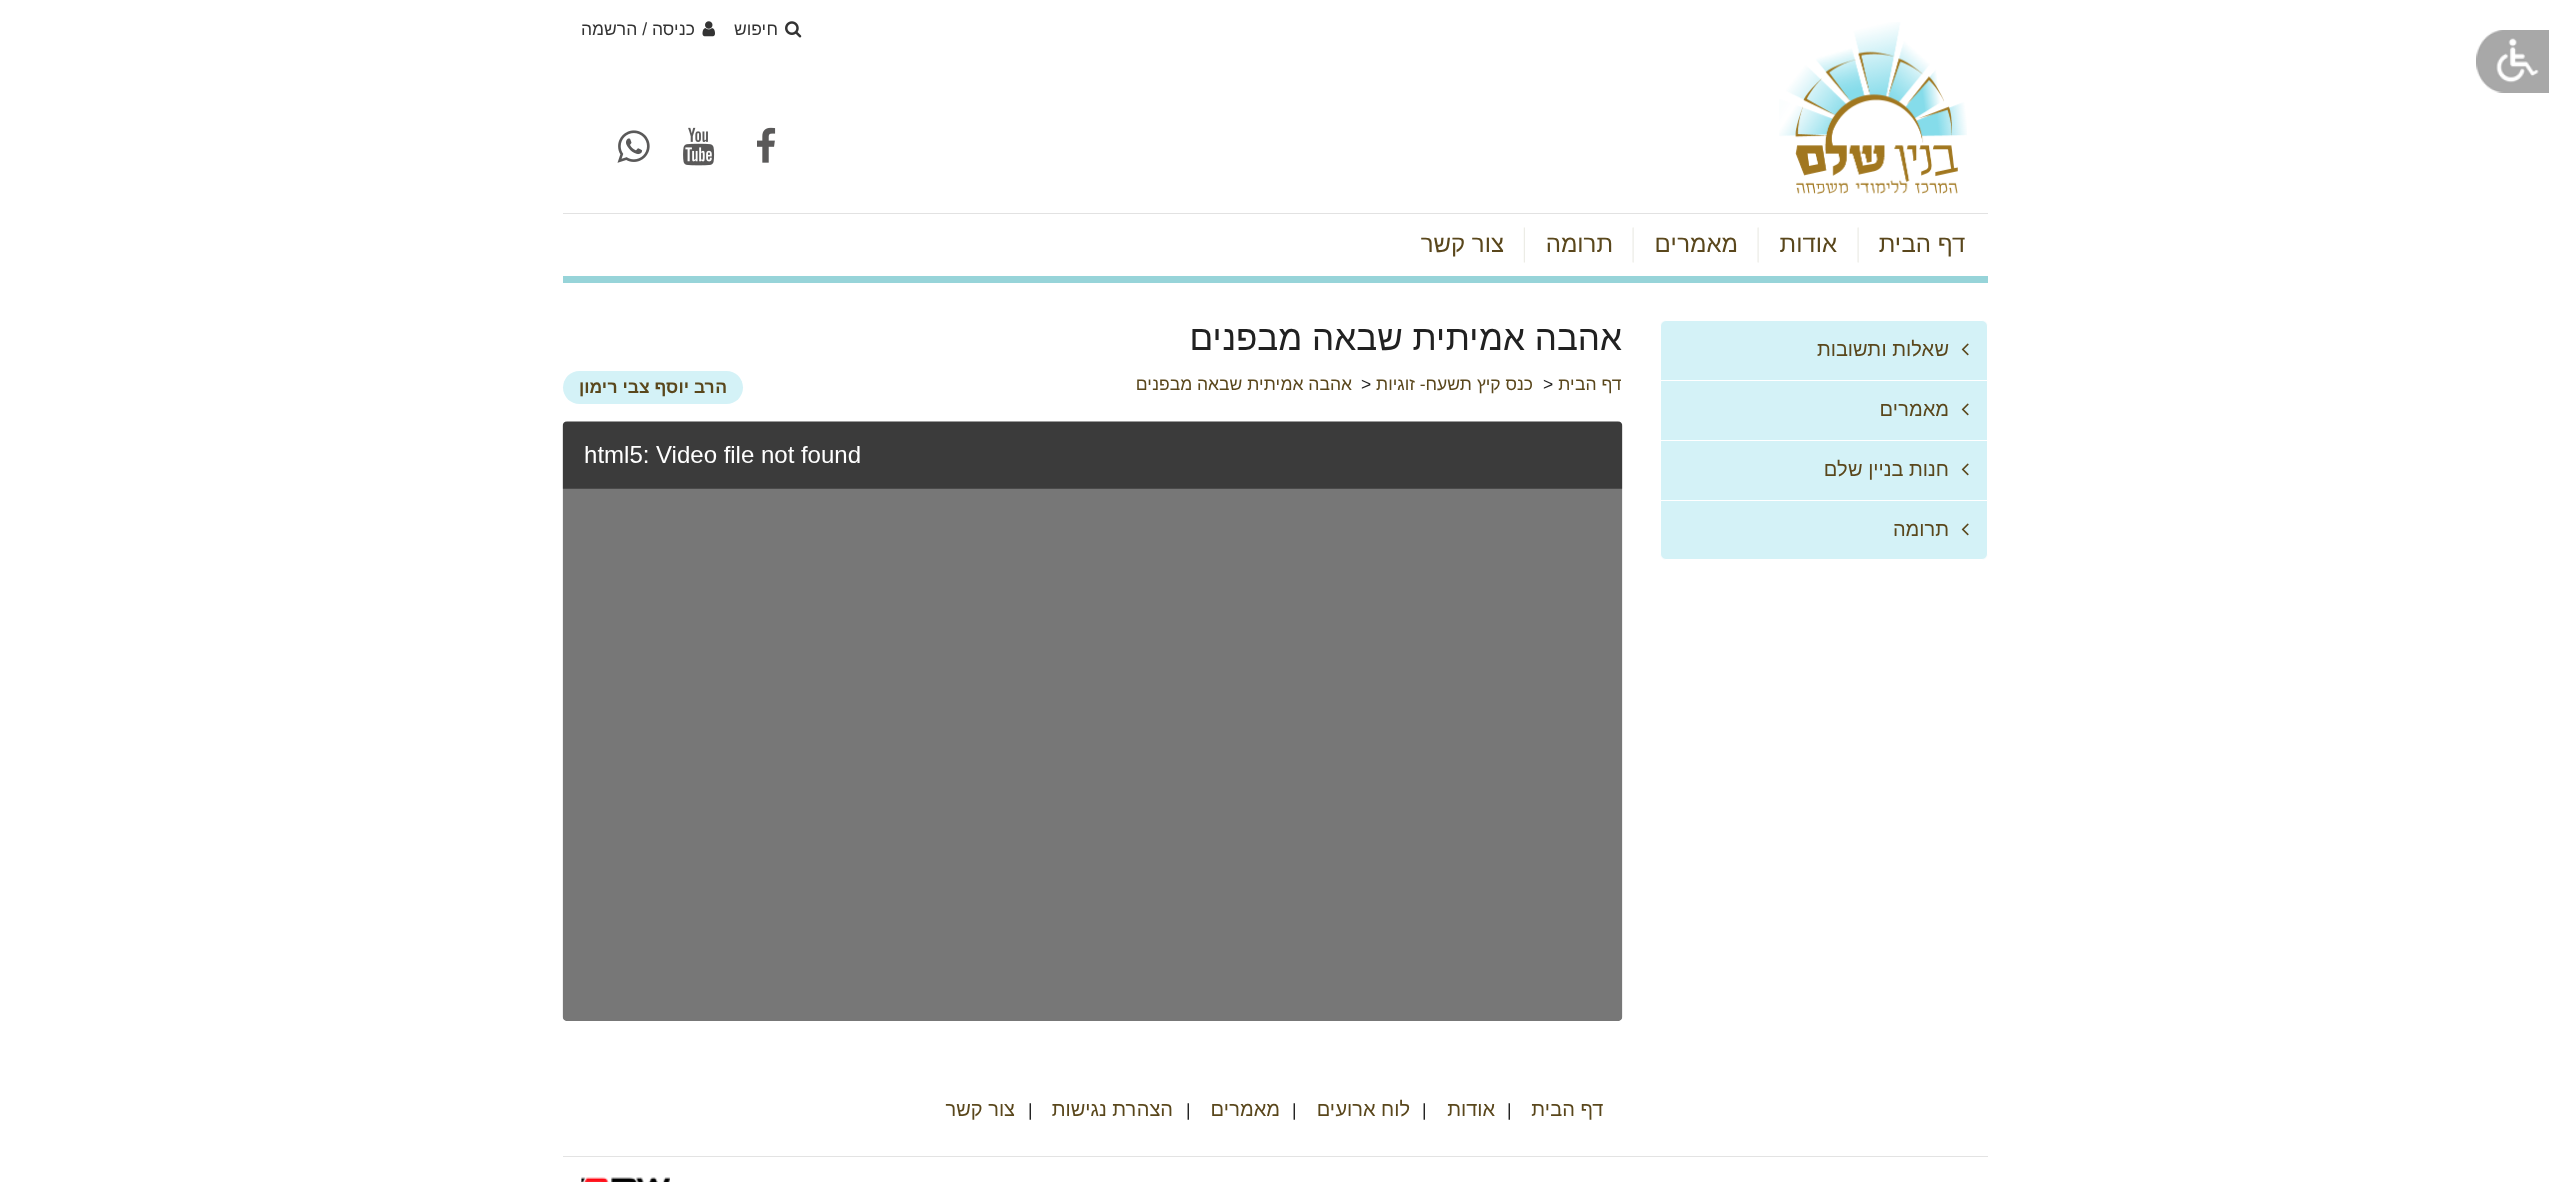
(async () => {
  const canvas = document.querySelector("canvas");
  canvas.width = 2549;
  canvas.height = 1182;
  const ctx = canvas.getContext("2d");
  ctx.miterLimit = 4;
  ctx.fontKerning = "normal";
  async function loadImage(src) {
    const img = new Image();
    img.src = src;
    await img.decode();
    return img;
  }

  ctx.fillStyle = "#ffffff";
  ctx.fillRect(0, 0, 2549, 1182);
  ctx.drawImage(await loadImage("img/1.png"), 2476, 30, 73, 63);
  ctx.fillStyle = "#97d4d9";
  ctx.fillRect(563, 276, 1425, 7);
  ctx.drawImage(await loadImage("img/2.png"), 1779, 22, 188, 172);
  ctx.drawImage(await loadImage("img/3.png"), 785, 21, 17, 17);
  ctx.drawImage(await loadImage("img/4.png"), 702, 21, 13, 16);
  ctx.drawImage(await loadImage("img/5.png"), 757, 127, 19, 36);
  ctx.drawImage(await loadImage("img/6.png"), 683, 127, 32, 39);
  ctx.drawImage(await loadImage("img/7.png"), 617, 130, 33, 33);
  ctx.fillStyle = "#e2e2e2";
  ctx.fillRect(563, 213, 1425, 1);
  ctx.drawImage(await loadImage("img/8.png"), 1857, 227, 2, 36);
  ctx.drawImage(await loadImage("img/8.png"), 1757, 227, 2, 36);
  ctx.drawImage(await loadImage("img/8.png"), 1632, 227, 2, 36);
  ctx.drawImage(await loadImage("img/9.png"), 1523, 227, 2, 36);
  ctx.fillStyle = "#d4f2f7";
  ctx.beginPath();
  ctx.roundRect(1660.5, 320.5, 327, 60, [5.5, 5.5, 0, 0]);
  ctx.fill();
  ctx.strokeStyle = "#ffffff";
  ctx.stroke();
  ctx.drawImage(await loadImage("img/10.png"), 1961, 343, 8, 13);
  ctx.fillRect(1661, 381, 326, 59);
  ctx.drawImage(await loadImage("img/10.png"), 1961, 403, 8, 13);
  ctx.fillRect(1661, 441, 326, 59);
  ctx.drawImage(await loadImage("img/10.png"), 1961, 463, 8, 13);
  ctx.beginPath();
  ctx.roundRect(1660.5, 500.5, 327, 59, [0, 0, 5.5, 5.5]);
  ctx.fill();
  ctx.stroke();
  ctx.drawImage(await loadImage("img/10.png"), 1961, 523, 8, 13);
  ctx.beginPath();
  ctx.roundRect(563, 371, 180, 33, 16.5);
  ctx.fill();
  ctx.drawImage(await loadImage("img/11.png"), 562, 421, 1061, 600);
  ctx.fillStyle = "#e3e3e3";
  ctx.fillRect(563, 1156, 1425, 1);
  ctx.drawImage(await loadImage("img/12.png"), 581, 1177, 89, 5);
  ctx.direction = "rtl";
  ctx.font = "17.5px Arimo";
  ctx.fillStyle = "#333333";
  ctx.fillText("חיפוש", 778, 35);
  ctx.fillText("כניסה / הרשמה", 695, 35);
  ctx.font = "24px Arimo";
  ctx.fillStyle = "#5a471c";
  for (const [text, x, y] of [
    ["דף הבית", 1966, 252],
    ["אודות", 1837, 252],
    ["מאמרים", 1738, 252],
    ["תרומה", 1613, 252],
    ["צור קשר", 1504, 252],
  ]) {
    ctx.fillText(text, x, y);
  }
  ctx.font = "20px Arimo";
  for (const [text, x, y] of [
    ["שאלות ותשובות", 1949, 356],
    ["מאמרים", 1949, 416],
    ["חנות בניין שלם", 1949, 476],
    ["תרומה", 1949, 536],
  ]) {
    ctx.fillText(text, x, y);
  }
  ctx.font = "35px Arimo";
  ctx.fillStyle = "#212121";
  ctx.fillText("אהבה אמיתית שבאה מבפנים", 1622, 350);
  ctx.font = "17.5px Arimo";
  ctx.fillStyle = "#5a471c";
  ctx.fillText("דף הבית", 1622, 390);
  ctx.direction = "ltr";
  ctx.fillStyle = "#212121";
  ctx.fillText(">", 1543, 390);
  ctx.direction = "rtl";
  ctx.fillStyle = "#5a471c";
  ctx.fillText("כנס קיץ תשעח- זוגיות", 1533, 390);
  ctx.direction = "ltr";
  ctx.fillStyle = "#212121";
  ctx.fillText(">", 1361, 390);
  ctx.direction = "rtl";
  ctx.fillStyle = "#5a471c";
  ctx.fillText("אהבה אמיתית שבאה מבפנים", 1352, 390);
  ctx.font = "bold 17.5px Arimo";
  ctx.fillText("הרב יוסף צבי רימון", 727, 393);
  ctx.font = "20px Arimo";
  ctx.fillText("דף הבית", 1604, 1116);
  ctx.direction = "ltr";
  ctx.font = "17.5px Arimo";
  ctx.fillStyle = "#212121";
  ctx.fillText("|", 1507, 1116);
  ctx.direction = "rtl";
  ctx.font = "20px Arimo";
  ctx.fillStyle = "#5a471c";
  ctx.fillText("אודות", 1495, 1116);
  ctx.direction = "ltr";
  ctx.font = "17.5px Arimo";
  ctx.fillStyle = "#212121";
  ctx.fillText("|", 1422, 1116);
  ctx.direction = "rtl";
  ctx.font = "20px Arimo";
  ctx.fillStyle = "#5a471c";
  ctx.fillText("לוח ארועים", 1410, 1116);
  ctx.direction = "ltr";
  ctx.font = "17.5px Arimo";
  ctx.fillStyle = "#212121";
  ctx.fillText("|", 1292, 1116);
  ctx.direction = "rtl";
  ctx.font = "20px Arimo";
  ctx.fillStyle = "#5a471c";
  ctx.fillText("מאמרים", 1280, 1116);
  ctx.direction = "ltr";
  ctx.font = "17.5px Arimo";
  ctx.fillStyle = "#212121";
  ctx.fillText("|", 1186, 1116);
  ctx.direction = "rtl";
  ctx.font = "20px Arimo";
  ctx.fillStyle = "#5a471c";
  ctx.fillText("הצהרת נגישות", 1173, 1116);
  ctx.direction = "ltr";
  ctx.font = "17.5px Arimo";
  ctx.fillStyle = "#212121";
  ctx.fillText("|", 1028, 1116);
  ctx.direction = "rtl";
  ctx.font = "20px Arimo";
  ctx.fillStyle = "#5a471c";
  ctx.fillText("צור קשר", 1015, 1116);
})();
